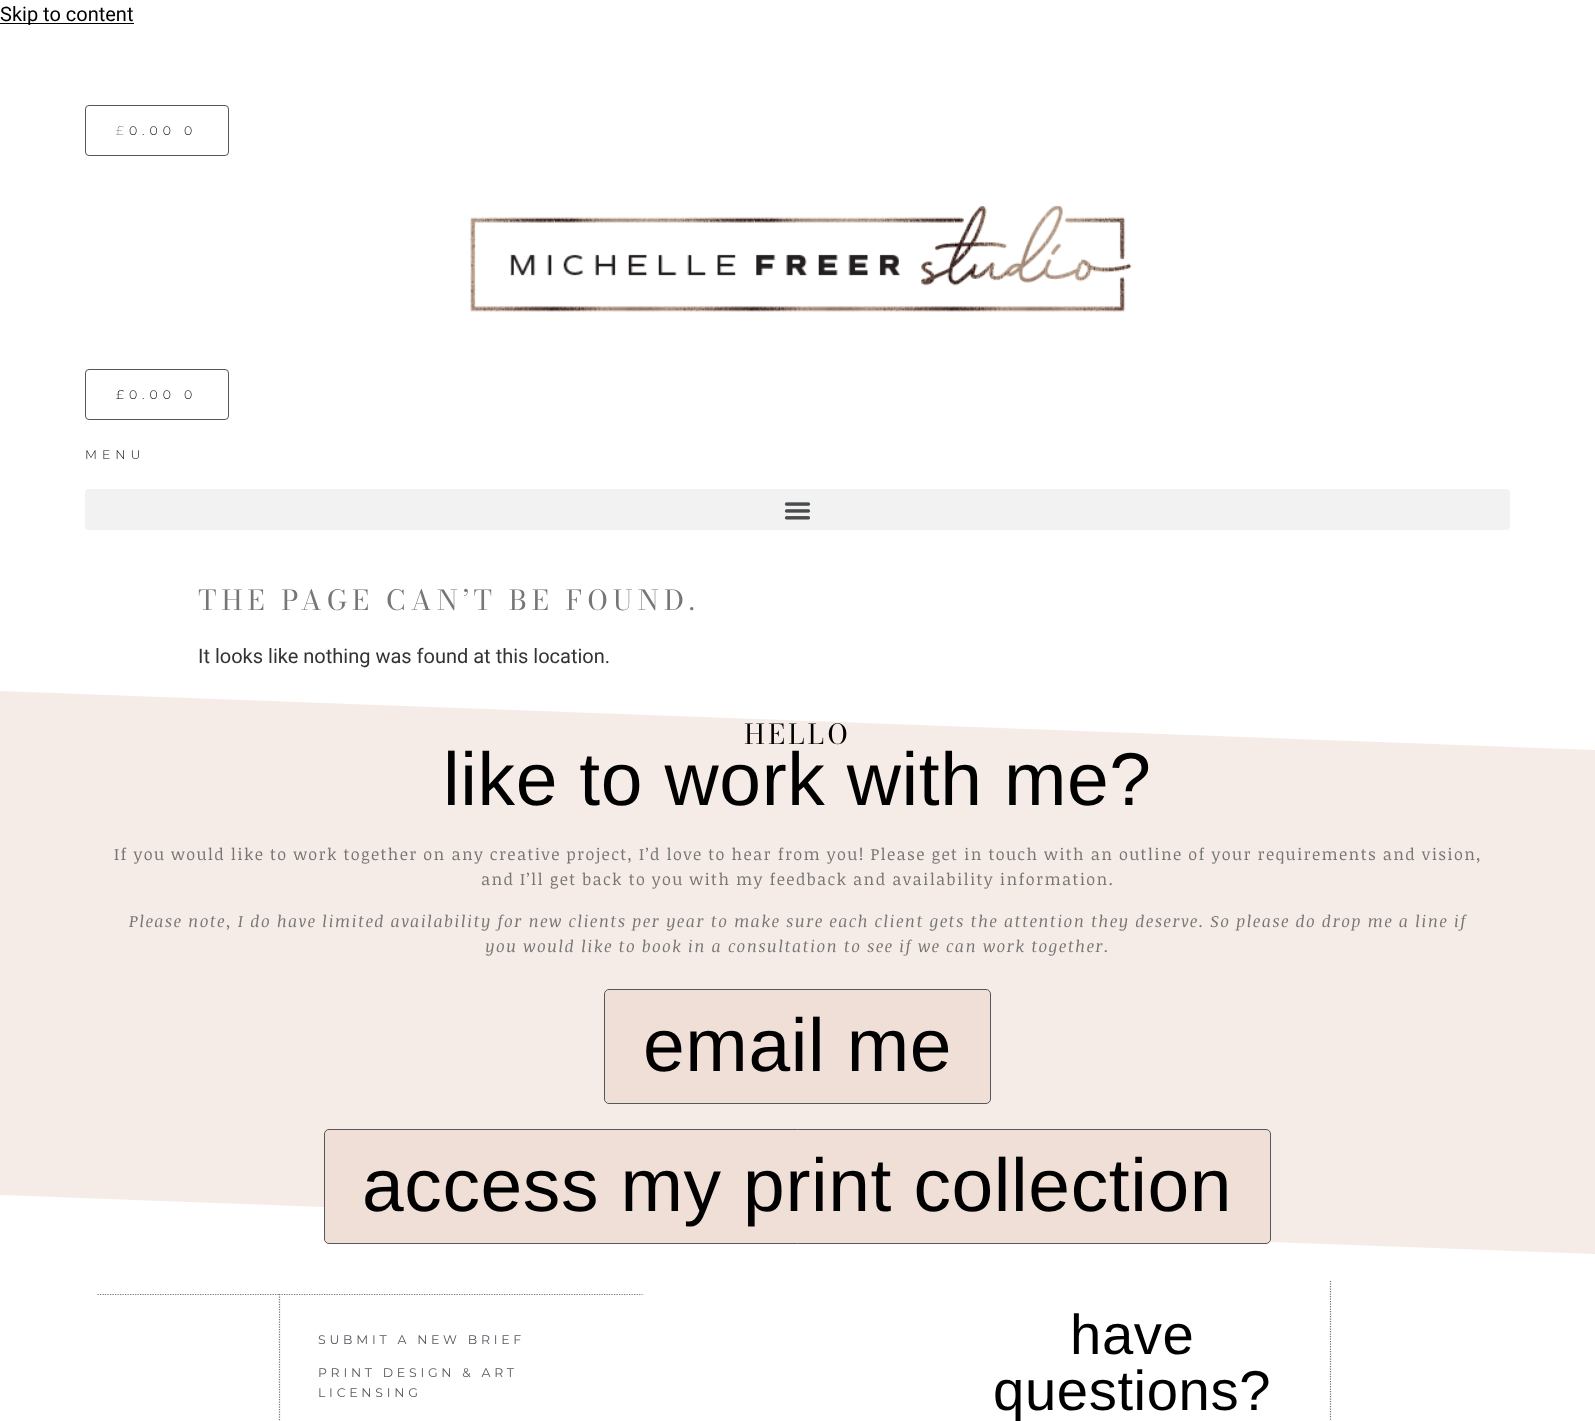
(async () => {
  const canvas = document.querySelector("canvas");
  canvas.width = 1595;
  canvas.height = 1421;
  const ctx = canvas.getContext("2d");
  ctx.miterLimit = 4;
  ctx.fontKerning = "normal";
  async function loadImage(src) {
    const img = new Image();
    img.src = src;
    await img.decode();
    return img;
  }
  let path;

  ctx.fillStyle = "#ffffff";
  ctx.fillRect(0, 0, 1595, 1421);
  ctx.fillStyle = "#000000";
  ctx.fillRect(0, 23, 134, 1);
  ctx.beginPath();
  ctx.roundRect(85.5, 105.5, 143, 50, 3.5);
  ctx.strokeStyle = "#575757";
  ctx.stroke();
  ctx.drawImage(await loadImage("img/1.png"), 470, 205, 662, 107);
  ctx.beginPath();
  ctx.roundRect(85.5, 369.5, 143, 50, 3.5);
  ctx.stroke();
  ctx.fillStyle = "#f2f2f2";
  ctx.beginPath();
  ctx.roundRect(85, 489, 1425, 41, 4);
  ctx.fill();
  ctx.drawImage(await loadImage("img/2.png"), 784, 502, 27, 18);
  ctx.fillStyle = "#f6ece7";
  ctx.fillRect(0, 691, 1595, 563);
  ctx.fillStyle = "#ffffff";
  path = new Path2D("M-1 691V688H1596V750Z");
  ctx.fill(path);
  ctx.fillStyle = "#efdfd7";
  ctx.beginPath();
  ctx.roundRect(604.5, 989.5, 386, 114, 4.5);
  ctx.fill();
  ctx.stroke();
  ctx.fillStyle = "#ffffff";
  path = new Path2D("M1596 1254V1258H-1V1195Z");
  ctx.fill(path);
  ctx.fillStyle = "#efdfd7";
  ctx.beginPath();
  ctx.roundRect(324.5, 1129.5, 946, 114, 4.5);
  ctx.fill();
  ctx.stroke();
  path = new Path2D("M97.5 1294.5H279");
  ctx.strokeStyle = "#777676";
  ctx.lineWidth = 1.2;
  ctx.setLineDash([1.25, 1.25]);
  ctx.stroke(path);
  path = new Path2D("M279 1294.5H642.5");
  ctx.stroke(path);
  path = new Path2D("M279.5 1294V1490");
  ctx.stroke(path);
  path = new Path2D("M1330.5 1281V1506");
  ctx.stroke(path);
  ctx.font = "20px Roboto";
  ctx.fillStyle = "#000000";
  ctx.fillText("Skip to content", 0, 21);
  ctx.letterSpacing = "5px";
  ctx.font = "100 12.5px Montserrat";
  ctx.fillText("£", 116, 135);
  ctx.font = "300 12.5px Montserrat";
  for (const [text, x, y] of [
    ["0.00 0", 129, 135],
    ["£", 116, 399],
    ["0.00 0", 129, 399],
    ["MENU", 85, 459],
  ]) {
    ctx.fillText(text, x, y);
  }
  ctx.font = "27.5px Bodoni Moda";
  ctx.fillStyle = "#777676";
  ctx.fillText("THE PAGE CAN’T BE FOUND.", 198, 610);
  ctx.letterSpacing = "0px";
  ctx.font = "20px Roboto";
  ctx.fillStyle = "#333333";
  ctx.fillText("It looks like nothing was found at this location.", 198, 663);
  ctx.letterSpacing = "3px";
  ctx.font = "27.5px Bodoni Moda";
  ctx.fillStyle = "#000000";
  ctx.fillText("HELLO", 744, 744);
  ctx.letterSpacing = "0.6px";
  ctx.font = "75px Liberation Sans";
  ctx.fillText("like to work with me?", 443, 805);
  ctx.letterSpacing = "1.38px";
  ctx.font = "16.25px Noticia Text";
  ctx.fillStyle = "#777676";
  ctx.fillText("If you would like to work together on any creative project, I’d love to hear from you! Please get in touch with an outline of your requirements and vision,", 114, 860);
  ctx.fillText("and I’ll get back to you with my feedback and availability information.", 481, 885);
  ctx.font = "italic 16.25px Noticia Text";
  ctx.fillText("Please note, I do have limited availability for new clients per year to make sure each client gets the attention they deserve. So please do drop me a line if", 129, 927);
  ctx.fillText("you would like to book in a consultation to see if we can work together.", 485, 952);
  ctx.letterSpacing = "0.6px";
  ctx.font = "75px Liberation Sans";
  ctx.fillStyle = "#000000";
  ctx.fillText("email me", 643, 1071);
  ctx.fillText("access my print collection", 362, 1211);
  ctx.letterSpacing = "3.75px";
  ctx.font = "12.5px Montserrat";
  ctx.fillStyle = "#54595f";
  for (const [text, x, y] of [
    ["SUBMIT A NEW BRIEF", 318, 1344],
    ["PRINT DESIGN & ART", 318, 1377],
    ["LICENSING", 318, 1397],
  ]) {
    ctx.fillText(text, x, y);
  }
  ctx.letterSpacing = "0.6px";
  ctx.font = "56.25px Liberation Sans";
  ctx.fillStyle = "#000000";
  ctx.fillText("have", 1070, 1354);
  ctx.fillText("questions?", 993, 1410);
})();
